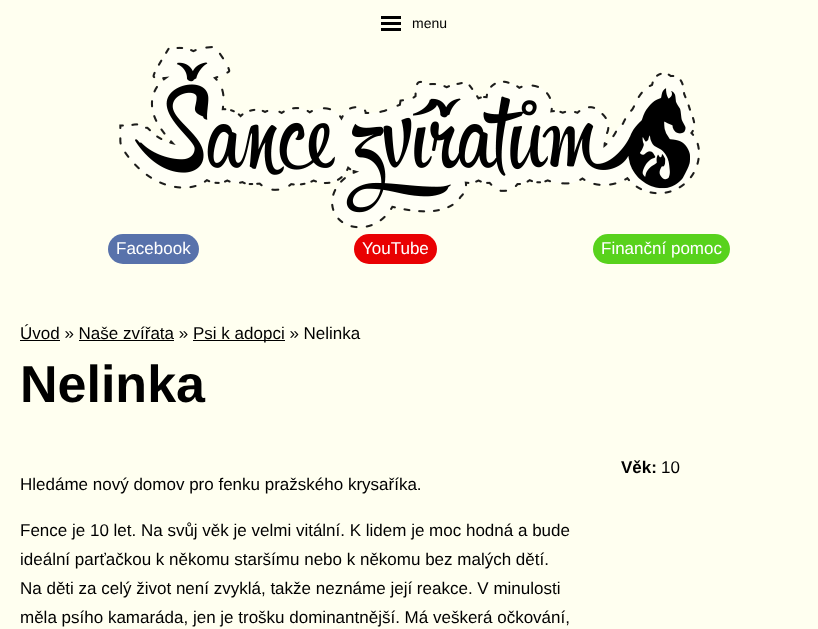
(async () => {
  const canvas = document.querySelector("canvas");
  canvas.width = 818;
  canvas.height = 629;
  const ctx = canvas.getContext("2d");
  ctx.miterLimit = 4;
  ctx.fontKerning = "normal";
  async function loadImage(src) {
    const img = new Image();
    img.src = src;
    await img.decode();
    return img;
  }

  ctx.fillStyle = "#fffff0";
  ctx.fillRect(0, 0, 818, 629);
  for (const [x, y, w, h, color] of [
    [381, 16, 20, 3, "#000000"],
    [381, 28, 20, 3, "#000000"],
    [381, 22, 20, 3, "#000000"],
  ]) {
    ctx.fillStyle = color;
    ctx.fillRect(x, y, w, h);
  }
  ctx.drawImage(await loadImage("img/1.png"), 119, 46, 581, 183);
  ctx.fillStyle = "#5872ab";
  ctx.beginPath();
  ctx.roundRect(108, 234, 91, 30, 15);
  ctx.fill();
  ctx.fillStyle = "#e90102";
  ctx.beginPath();
  ctx.roundRect(354, 234, 83, 30, 15);
  ctx.fill();
  ctx.fillStyle = "#58d21c";
  ctx.beginPath();
  ctx.roundRect(593, 234, 137, 30, 15);
  ctx.fill();
  for (const [x, y, w, h, color] of [
    [20, 340, 40, 1, "#000000"],
    [193, 340, 92, 1, "#000000"],
    [79, 340, 95, 1, "#000000"],
  ]) {
    ctx.fillStyle = color;
    ctx.fillRect(x, y, w, h);
  }
  ctx.font = "14px Liberation Sans";
  ctx.fillText("menu", 412, 28);
  ctx.font = "17px Liberation Sans";
  ctx.fillStyle = "#ffffff";
  for (const [text, x, y] of [
    ["Facebook", 116, 254],
    ["YouTube", 362, 254],
    ["Finanční pomoc", 601, 254],
  ]) {
    ctx.fillText(text, x, y);
  }
  ctx.fillStyle = "#000000";
  ctx.fillText("Úvod » Naše zvířata »", 20, 339);
  ctx.fillText("Psi k adopci » Nelinka", 193, 339);
  ctx.font = "bold 52px Liberation Sans";
  ctx.fillText("Nelinka", 20, 402);
  ctx.font = "bold 17px Liberation Sans";
  ctx.fillText("Věk:", 621, 473);
  ctx.font = "17px Liberation Sans";
  for (const [text, x, y] of [
    ["10", 661, 473],
    ["Hledáme nový domov pro fenku pražského krysaříka.", 20, 490],
    ["Fence je 10 let. Na svůj věk je velmi vitální. K lidem je moc hodná a bude", 20, 536],
    ["ideální parťačkou k někomu staršímu nebo k někomu bez malých dětí.", 20, 565],
    ["Na děti za celý život není zvyklá, takže neznáme její reakce. V minulosti", 20, 594],
    ["měla psího kamaráda, jen je trošku dominantnější. Má veškerá očkování,", 20, 623],
  ]) {
    ctx.fillText(text, x, y);
  }
})();
